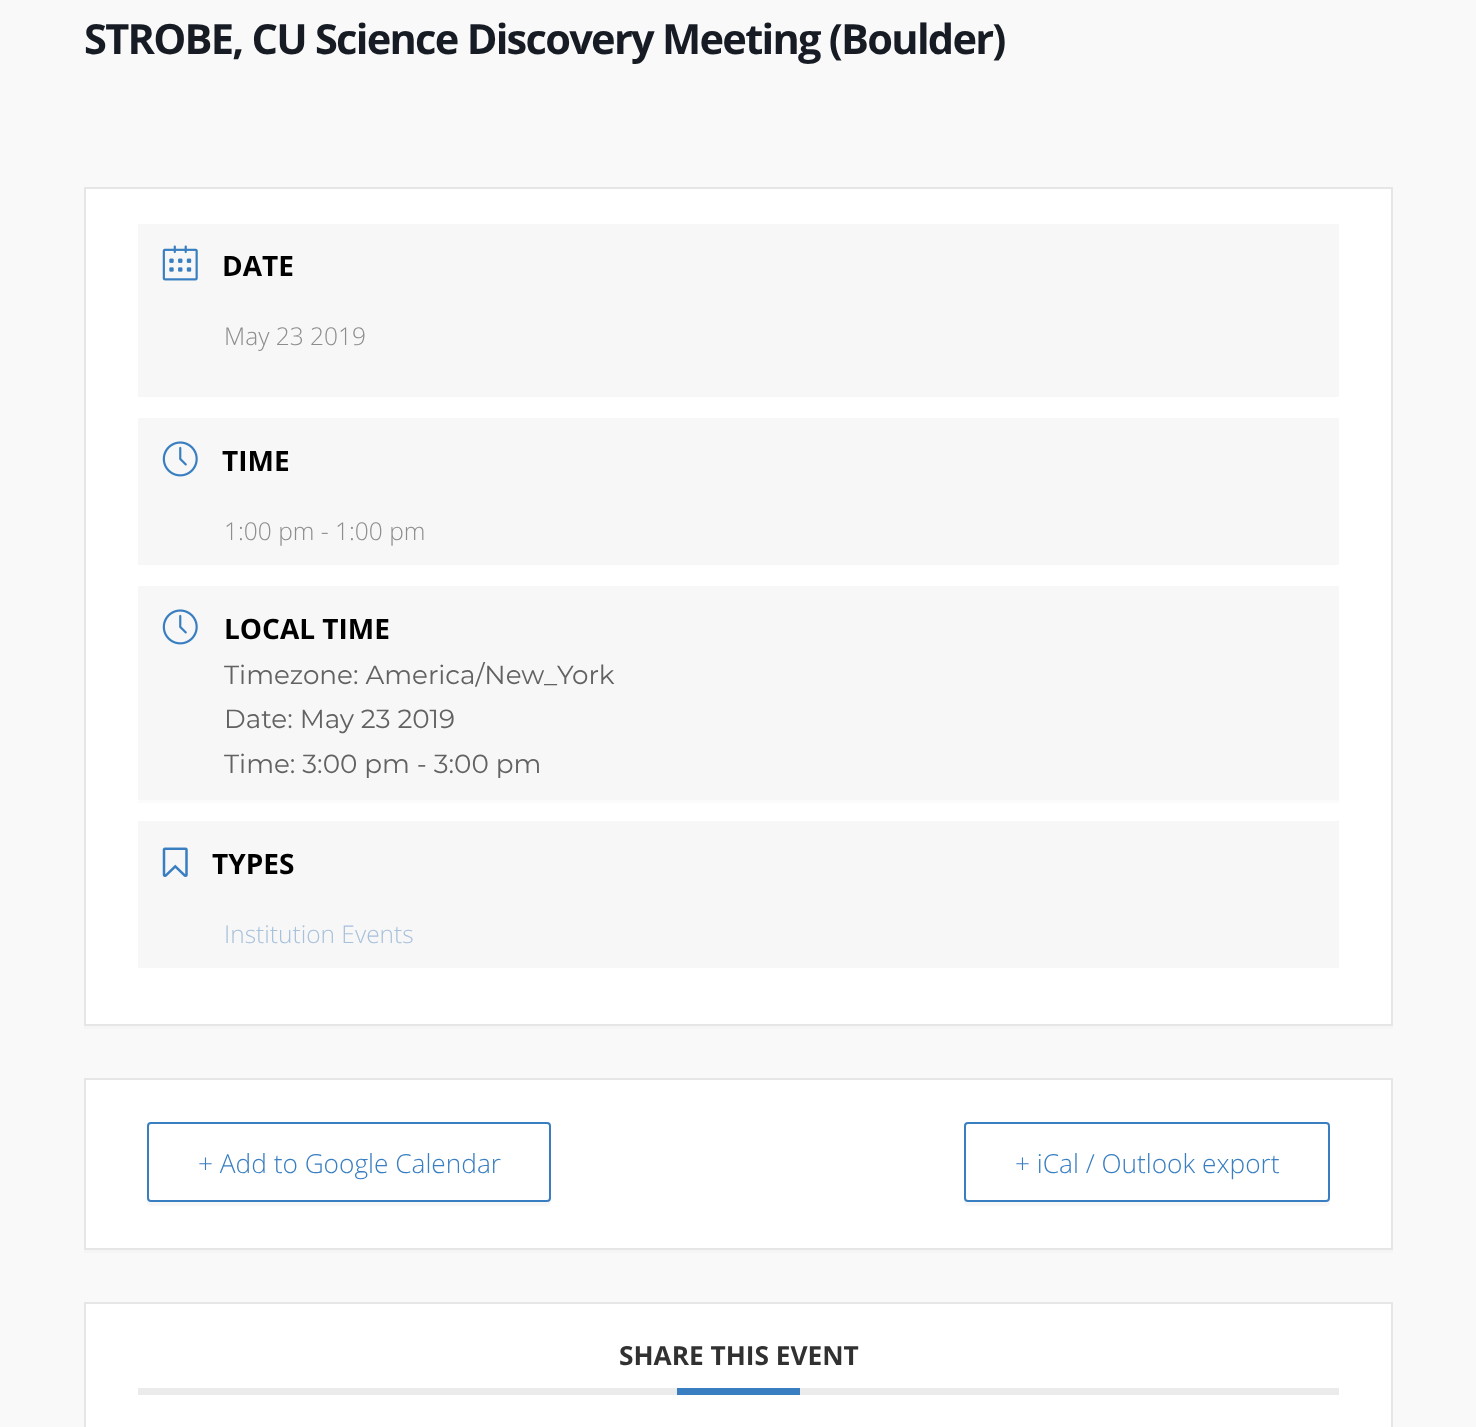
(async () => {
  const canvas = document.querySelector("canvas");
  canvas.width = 1476;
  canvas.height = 1427;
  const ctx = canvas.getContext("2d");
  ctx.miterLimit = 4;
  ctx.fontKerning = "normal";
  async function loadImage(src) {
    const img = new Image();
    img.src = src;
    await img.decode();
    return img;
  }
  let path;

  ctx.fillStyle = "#f9f9f9";
  ctx.fillRect(0, 0, 1476, 1427);
  ctx.fillStyle = "#f5f5f5";
  ctx.fillRect(84, 1026, 1309, 3);
  ctx.fillStyle = "#ffffff";
  ctx.beginPath();
  ctx.rect(85, 188, 1307, 837);
  ctx.fill();
  ctx.strokeStyle = "#e6e6e6";
  ctx.lineWidth = 2;
  ctx.stroke();
  ctx.fillStyle = "#f7f7f7";
  ctx.fillRect(138, 224, 1201, 173);
  ctx.drawImage(await loadImage("img/1.png"), 162, 245, 36, 36);
  ctx.fillRect(138, 418, 1201, 147);
  ctx.drawImage(await loadImage("img/2.png"), 162, 441, 36, 36);
  ctx.fillStyle = "#fbfbfb";
  path = new Path2D("M138 590V803H1339V590V800H138Z");
  ctx.fill(path);
  ctx.fillStyle = "#f7f7f7";
  ctx.fillRect(138, 586, 1201, 214);
  ctx.drawImage(await loadImage("img/2.png"), 162, 609, 36, 36);
  ctx.fillRect(138, 821, 1201, 147);
  ctx.drawImage(await loadImage("img/3.png"), 162, 847, 26, 30);
  ctx.fillStyle = "#f5f5f5";
  ctx.fillRect(84, 1250, 1309, 3);
  ctx.fillStyle = "#ffffff";
  ctx.beginPath();
  ctx.rect(85, 1079, 1307, 170);
  ctx.fill();
  ctx.stroke();
  ctx.fillStyle = "#f7f7f7";
  path = new Path2D("M147 1199V1202C147 1204 149 1206 151 1206H547C549 1206 551 1204 551 1202V1200C550 1201 549 1202 548 1202H150C149 1202 147 1201 147 1199Z");
  ctx.fill(path);
  ctx.beginPath();
  ctx.roundRect(148, 1123, 402, 78, 3);
  ctx.strokeStyle = "#387ec1";
  ctx.stroke();
  path = new Path2D("M964 1128V1202C964 1204 966 1206 968 1206H1326C1328 1206 1330 1204 1330 1202V1199C1330 1201 1328 1202 1326 1202H968C966 1202 964 1201 964 1199Z");
  ctx.fill(path);
  ctx.beginPath();
  ctx.roundRect(965, 1123, 364, 78, 3);
  ctx.stroke();
  ctx.fillStyle = "#ffffff";
  ctx.beginPath();
  ctx.rect(85, 1303, 1307, 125);
  ctx.fill();
  ctx.strokeStyle = "#e6e6e6";
  ctx.stroke();
  ctx.fillStyle = "#ebebeb";
  ctx.fillRect(138, 1388, 1201, 7);
  ctx.fillStyle = "#387ec1";
  ctx.fillRect(677, 1388, 123, 7);
  ctx.letterSpacing = "-1.75px";
  ctx.font = "bold 41.6px Open Sans";
  ctx.fillStyle = "#171c24";
  ctx.fillText("STROBE, CU Science Discovery Meeting (Boulder)", 84, 54);
  ctx.letterSpacing = "0px";
  ctx.font = "bold 28px Open Sans";
  ctx.fillStyle = "#000000";
  ctx.fillText("DATE", 222, 276);
  ctx.font = "300 24.5px Open Sans";
  ctx.fillStyle = "#8d8d8d";
  ctx.fillText("May 23 2019", 224, 345);
  ctx.font = "bold 28px Open Sans";
  ctx.fillStyle = "#000000";
  ctx.fillText("TIME", 222, 471);
  ctx.font = "300 24.5px Open Sans";
  ctx.fillStyle = "#8d8d8d";
  ctx.fillText("1:00 pm - 1:00 pm", 224, 540);
  ctx.font = "bold 28px Open Sans";
  ctx.fillStyle = "#000000";
  ctx.fillText("LOCAL TIME", 224, 639);
  ctx.font = "26.25px Montserrat";
  ctx.fillStyle = "#626262";
  for (const [text, x, y] of [
    ["Timezone: America/New_York", 224, 684],
    ["Date: May 23 2019", 224, 728],
    ["Time: 3:00 pm - 3:00 pm", 224, 773],
  ]) {
    ctx.fillText(text, x, y);
  }
  ctx.font = "bold 28px Open Sans";
  ctx.fillStyle = "#000000";
  ctx.fillText("TYPES", 212, 874);
  ctx.font = "300 24.5px Open Sans";
  ctx.fillStyle = "#a8c1db";
  ctx.fillText("Institution Events", 224, 943);
  ctx.font = "300 26.25px Open Sans";
  ctx.fillStyle = "#387ec1";
  ctx.fillText("+ Add to Google Calendar", 198, 1173);
  ctx.fillText("+ iCal / Outlook export", 1015, 1173);
  ctx.font = "bold 26.25px Open Sans";
  ctx.fillStyle = "#313131";
  ctx.fillText("SHARE THIS EVENT", 619, 1365);
})();
